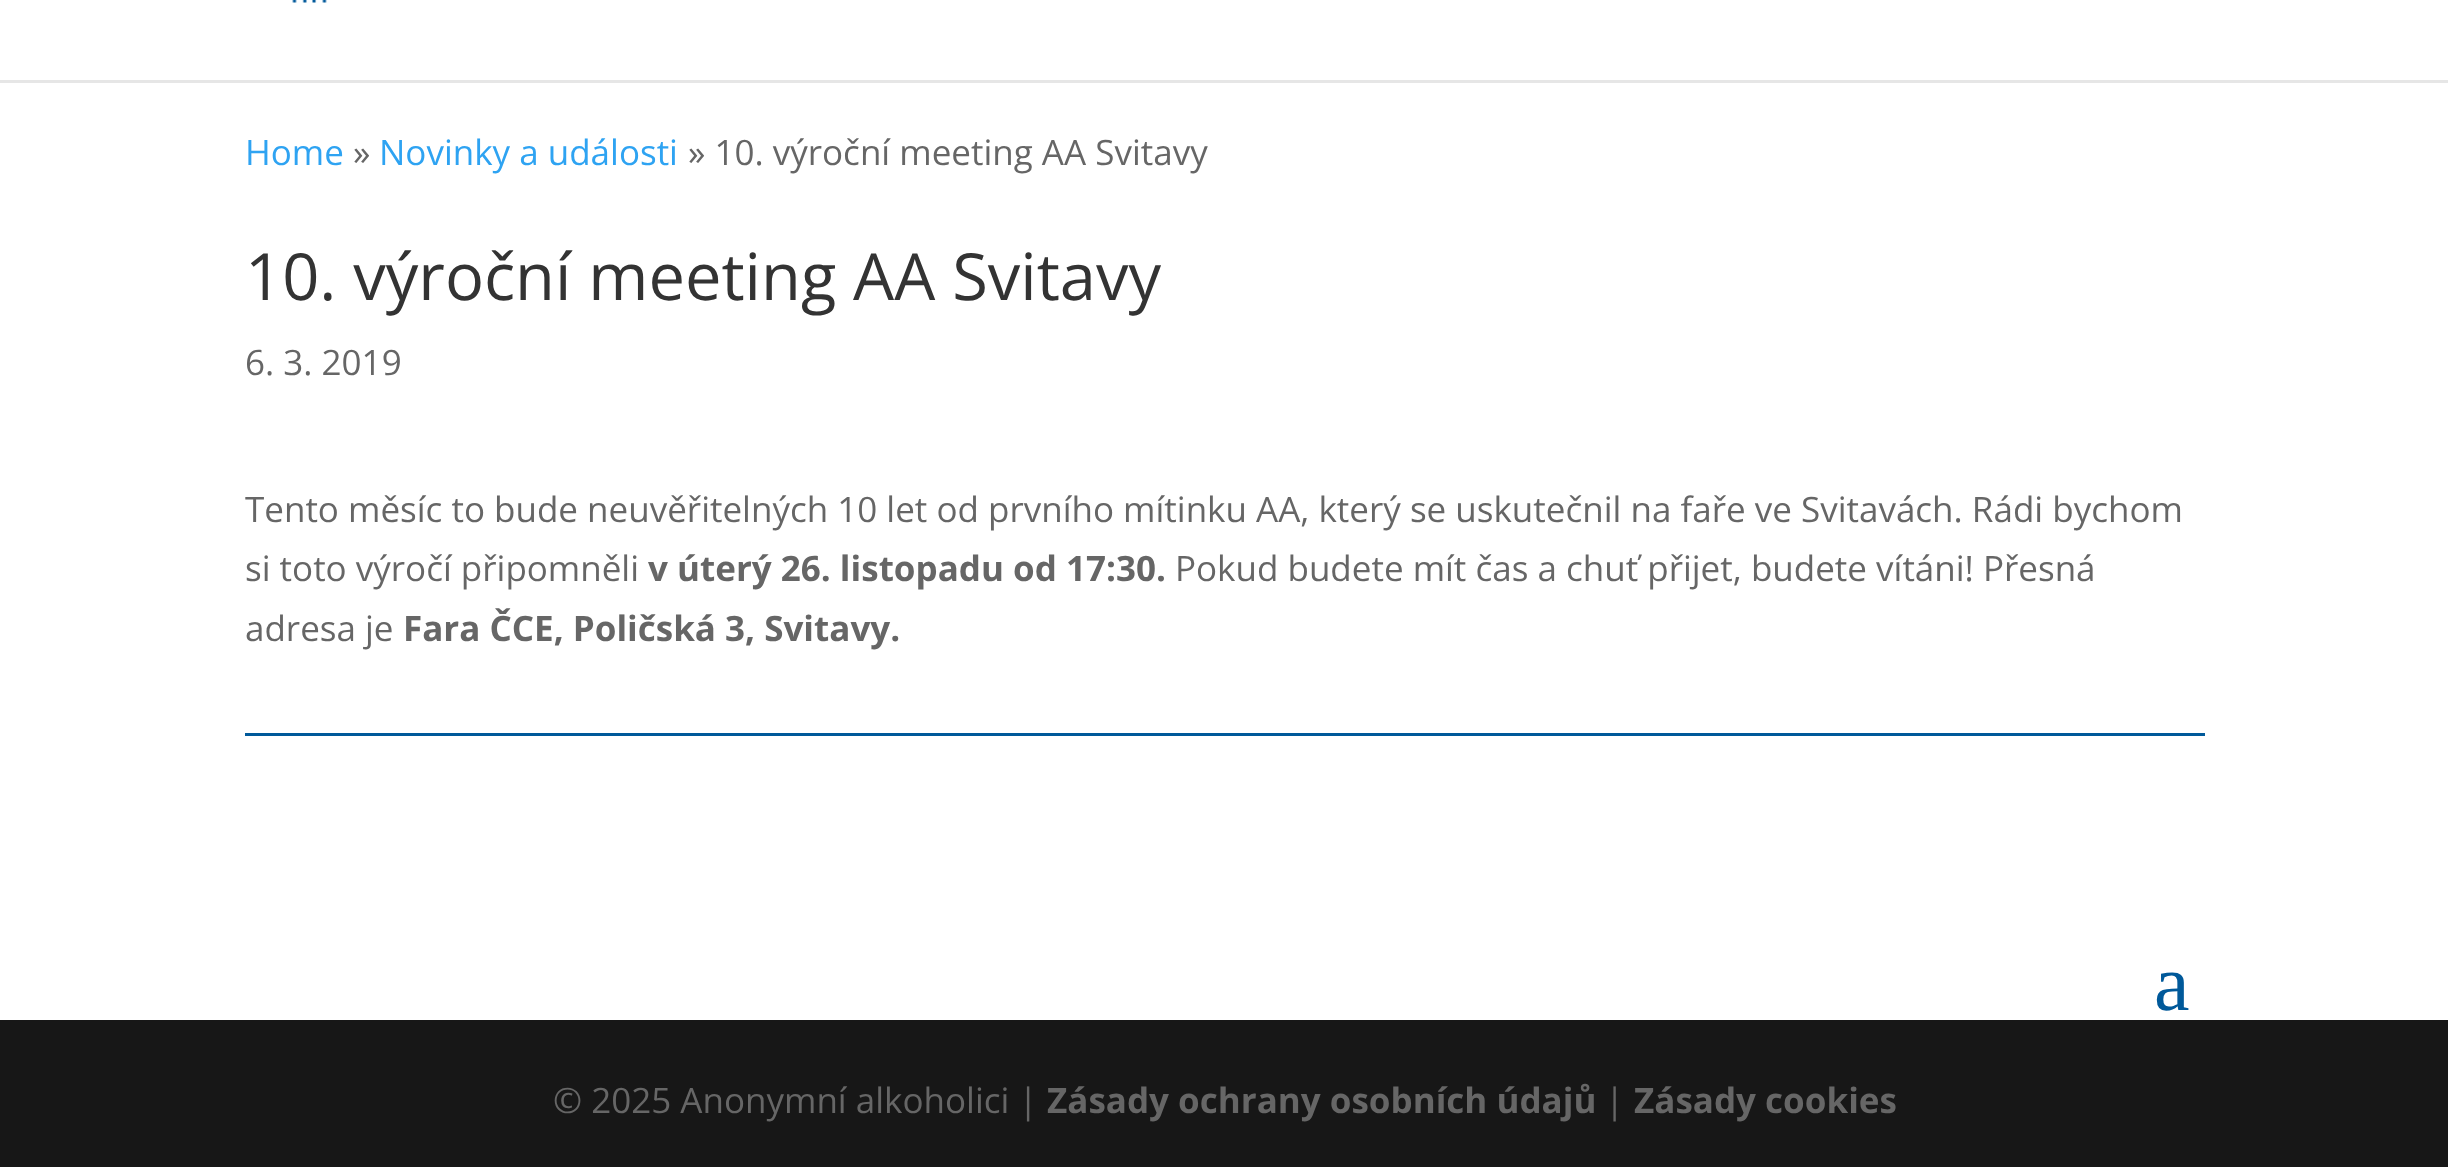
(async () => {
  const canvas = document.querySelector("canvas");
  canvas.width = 2448;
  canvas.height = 1167;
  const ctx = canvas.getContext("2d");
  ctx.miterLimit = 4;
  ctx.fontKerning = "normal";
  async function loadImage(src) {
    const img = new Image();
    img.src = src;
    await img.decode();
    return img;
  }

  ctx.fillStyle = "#ffffff";
  ctx.fillRect(0, 0, 2448, 1167);
  ctx.fillStyle = "#e6e6e6";
  ctx.fillRect(0, 80, 2448, 3);
  ctx.drawImage(await loadImage("img/1.png"), 292, 0, 35, 3);
  ctx.fillStyle = "#00599a";
  ctx.fillRect(245, 733, 1960, 3);
  ctx.fillStyle = "#171717";
  ctx.fillRect(0, 1020, 2448, 147);
  ctx.font = "35px Open Sans";
  ctx.fillStyle = "#2ea3f2";
  ctx.fillText("Home", 245, 165);
  ctx.fillStyle = "#666666";
  ctx.fillText("»", 353, 165);
  ctx.fillStyle = "#2ea3f2";
  ctx.fillText("Novinky a události", 379, 165);
  ctx.fillStyle = "#666666";
  ctx.fillText("» 10. výroční meeting AA Svitavy", 688, 165);
  ctx.font = "65px Open Sans";
  ctx.fillStyle = "#333333";
  ctx.fillText("10. výroční meeting AA Svitavy", 245, 300);
  ctx.font = "35px Open Sans";
  ctx.fillStyle = "#666666";
  for (const [text, x, y] of [
    ["6. 3. 2019", 245, 375],
    ["Tento měsíc to bude neuvěřitelných 10 let od prvního mítinku AA, který se uskutečnil na faře ve Svitavách. Rádi bychom", 245, 522],
    ["si toto výročí připomněli", 245, 581],
  ]) {
    ctx.fillText(text, x, y);
  }
  ctx.font = "bold 35px Open Sans";
  ctx.fillText("v úterý 26. listopadu od 17:30.", 648, 581);
  ctx.font = "35px Open Sans";
  ctx.fillText("Pokud budete mít čas a chuť přijet, budete vítáni! Přesná", 1175, 581);
  ctx.fillText("adresa je", 245, 641);
  ctx.font = "bold 35px Open Sans";
  ctx.fillText("Fara ČCE, Poličská 3, Svitavy.", 403, 641);
  ctx.font = "80px Liberation Serif";
  ctx.fillStyle = "#00599a";
  ctx.fillText("a", 2154, 1010);
  ctx.font = "35px Open Sans";
  ctx.fillStyle = "#666666";
  ctx.fillText("© 2025 Anonymní alkoholici |", 553, 1113);
  ctx.font = "bold 35px Open Sans";
  ctx.fillText("Zásady ochrany osobních údajů", 1047, 1113);
  ctx.font = "35px Open Sans";
  ctx.fillText("|", 1605, 1113);
  ctx.font = "bold 35px Open Sans";
  ctx.fillText("Zásady cookies", 1634, 1113);
})();
